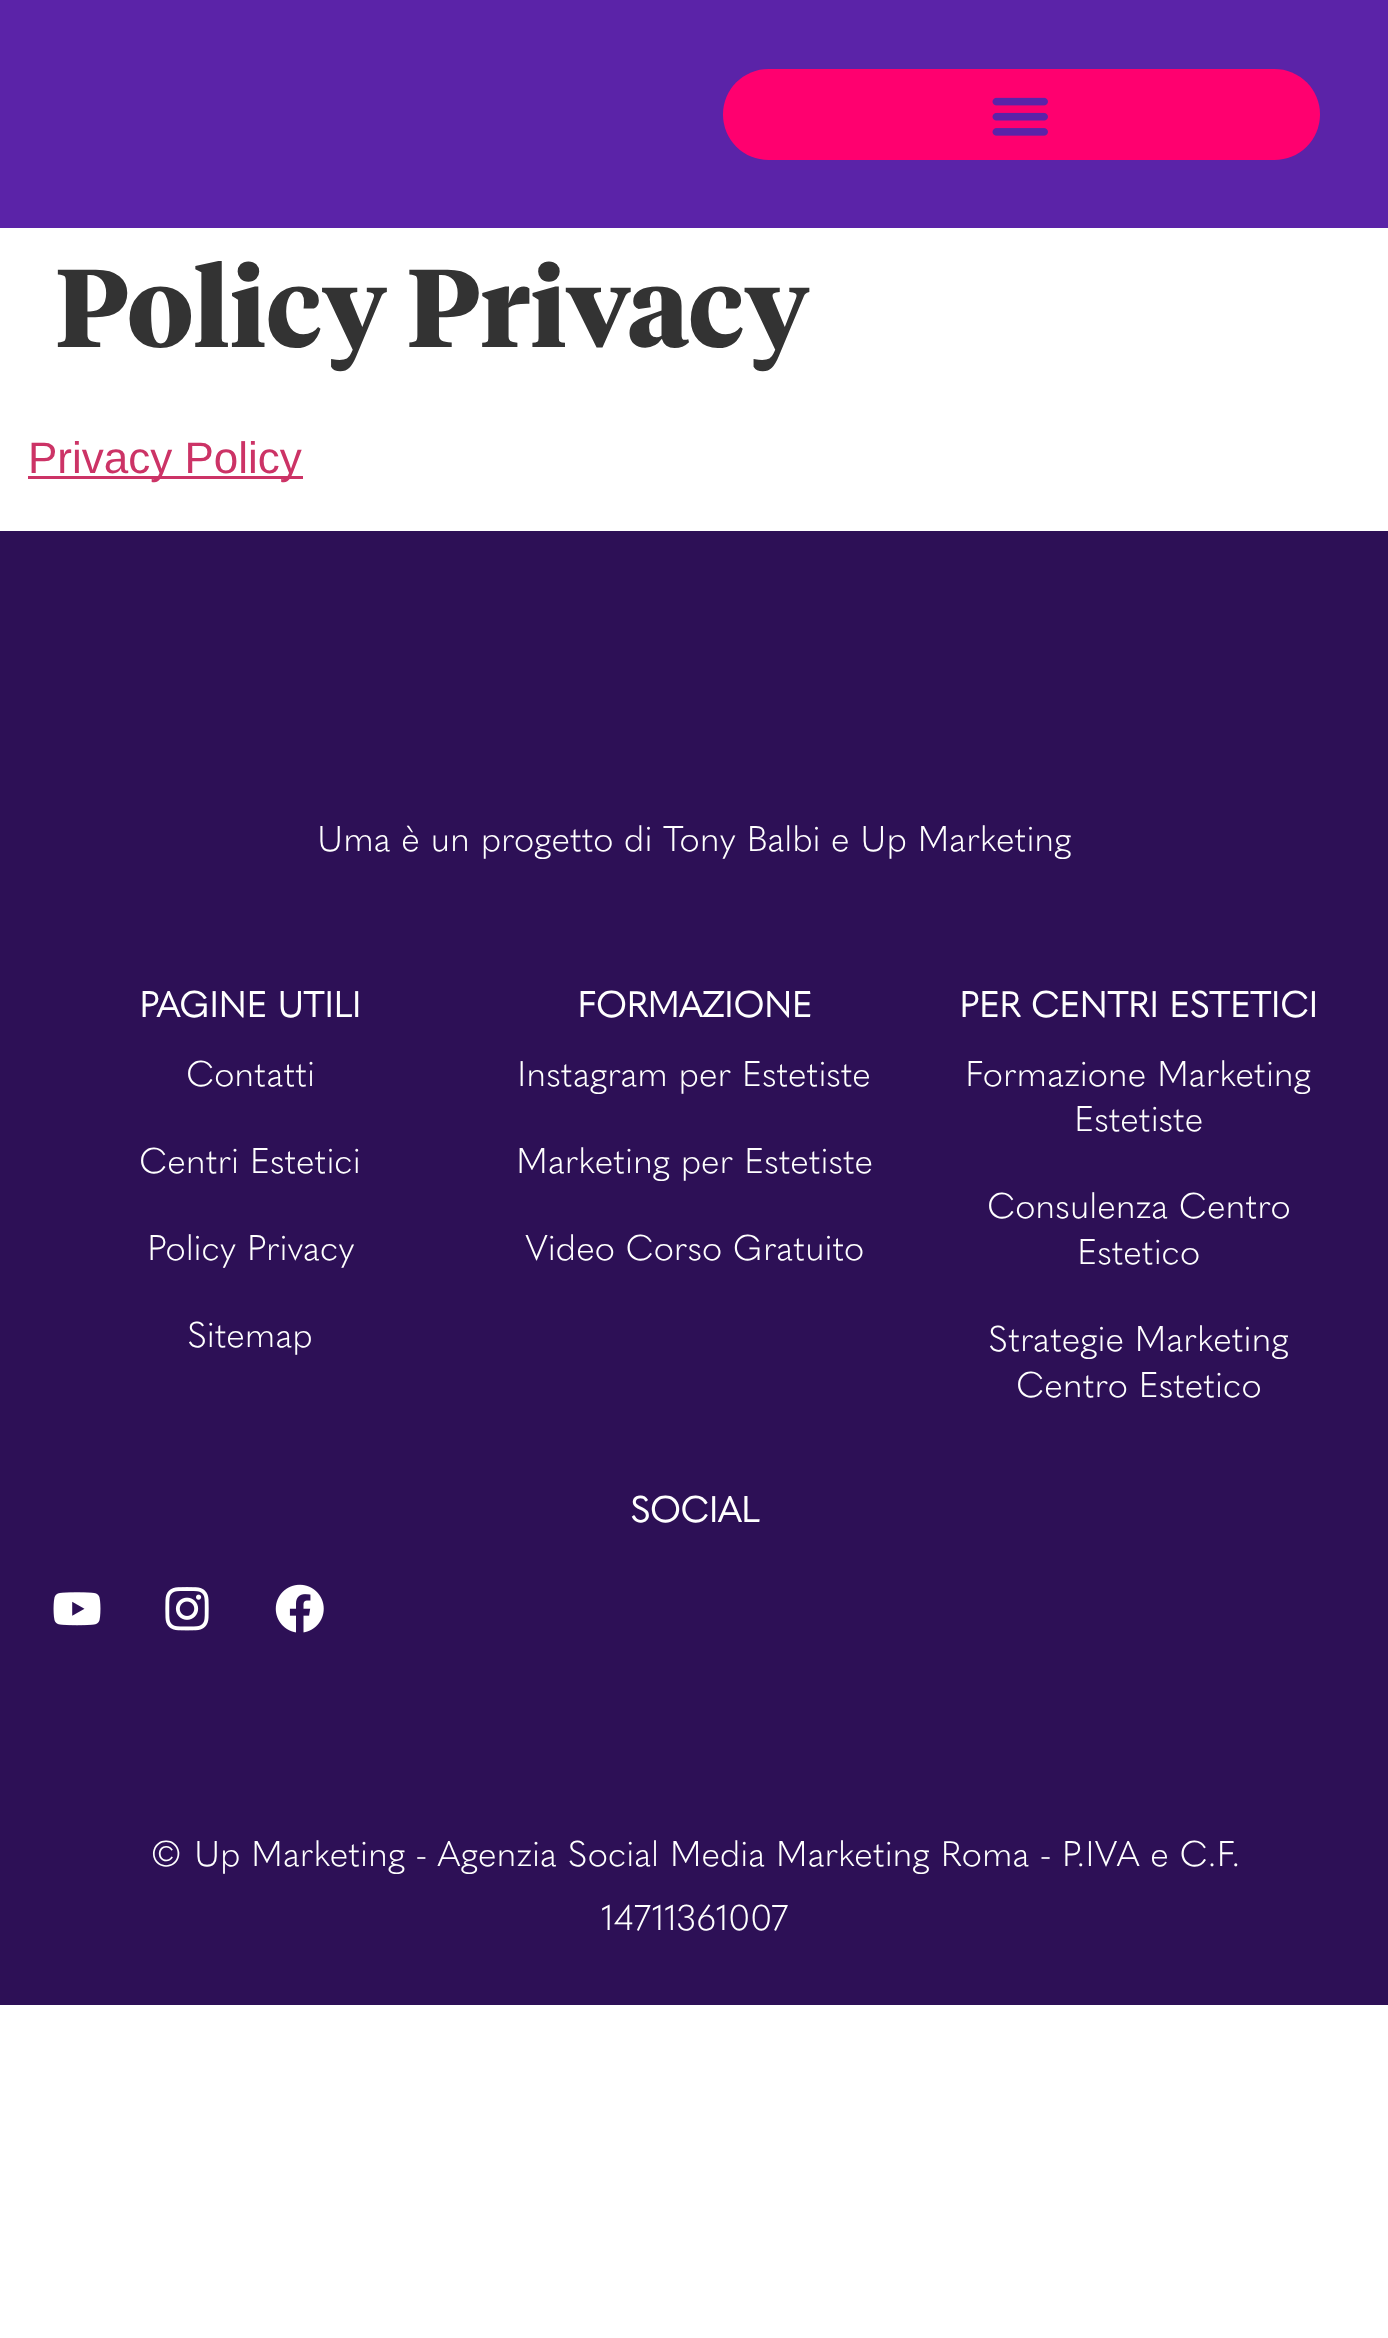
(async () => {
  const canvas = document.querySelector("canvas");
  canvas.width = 1388;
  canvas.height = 2338;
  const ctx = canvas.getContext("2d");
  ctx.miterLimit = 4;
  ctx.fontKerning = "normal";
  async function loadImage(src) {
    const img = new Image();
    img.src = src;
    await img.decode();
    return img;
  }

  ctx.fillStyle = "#ffffff";
  ctx.fillRect(0, 0, 1388, 2338);
  ctx.fillStyle = "#5b23a8";
  ctx.fillRect(0, 0, 1388, 228);
  ctx.fillStyle = "#ff006f";
  ctx.beginPath();
  ctx.roundRect(723, 69, 597, 91, 45.5);
  ctx.fill();
  ctx.drawImage(await loadImage("img/1.png"), 992, 97, 56, 39);
  ctx.fillStyle = "#cc3366";
  ctx.fillRect(28, 476, 275, 3);
  ctx.fillStyle = "#2d1056";
  ctx.fillRect(0, 531, 1388, 1474);
  ctx.drawImage(await loadImage("img/2.png"), 53, 1592, 48, 34);
  ctx.drawImage(await loadImage("img/3.png"), 165, 1587, 44, 44);
  ctx.drawImage(await loadImage("img/4.png"), 275, 1584, 49, 49);
  ctx.font = "bold 110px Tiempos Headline";
  ctx.fillStyle = "#333333";
  ctx.fillText("Policy Privacy", 55, 347);
  ctx.font = "44px Liberation Sans";
  ctx.fillStyle = "#cc3366";
  ctx.fillText("Privacy Policy", 28, 473);
  ctx.font = "300 35.2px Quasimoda";
  ctx.fillStyle = "#ffffff";
  ctx.fillText("Uma è un progetto di Tony Balbi e Up Marketing", 317, 851);
  ctx.font = "bold 35.2px Quasimoda";
  ctx.fillText("PAGINE UTILI", 139, 1017);
  ctx.font = "300 35.2px Quasimoda";
  for (const [text, x, y] of [
    ["Contatti", 186, 1086],
    ["Centri Estetici", 139, 1173],
    ["Policy Privacy", 147, 1260],
    ["Sitemap", 187, 1347],
  ]) {
    ctx.fillText(text, x, y);
  }
  ctx.font = "bold 35.2px Quasimoda";
  ctx.fillText("FORMAZIONE", 577, 1017);
  ctx.font = "300 35.2px Quasimoda";
  for (const [text, x, y] of [
    ["Instagram per Estetiste", 517, 1086],
    ["Marketing per Estetiste", 516, 1173],
    ["Video Corso Gratuito", 525, 1260],
  ]) {
    ctx.fillText(text, x, y);
  }
  ctx.font = "bold 35.2px Quasimoda";
  ctx.fillText("PER CENTRI ESTETICI", 959, 1017);
  ctx.font = "300 35.2px Quasimoda";
  for (const [text, x, y] of [
    ["Formazione Marketing", 965, 1086],
    ["Estetiste", 1074, 1131],
    ["Consulenza Centro", 987, 1218],
    ["Estetico", 1077, 1264],
    ["Strategie Marketing", 988, 1351],
    ["Centro Estetico", 1016, 1397],
  ]) {
    ctx.fillText(text, x, y);
  }
  ctx.font = "bold 35.2px Quasimoda";
  ctx.fillText("SOCIAL", 630, 1522);
  ctx.font = "300 35.2px Quasimoda";
  ctx.fillText("© Up Marketing - Agenzia Social Media Marketing Roma - P.IVA e C.F.", 149, 1866);
  ctx.fillText("14711361007", 601, 1930);
})();
